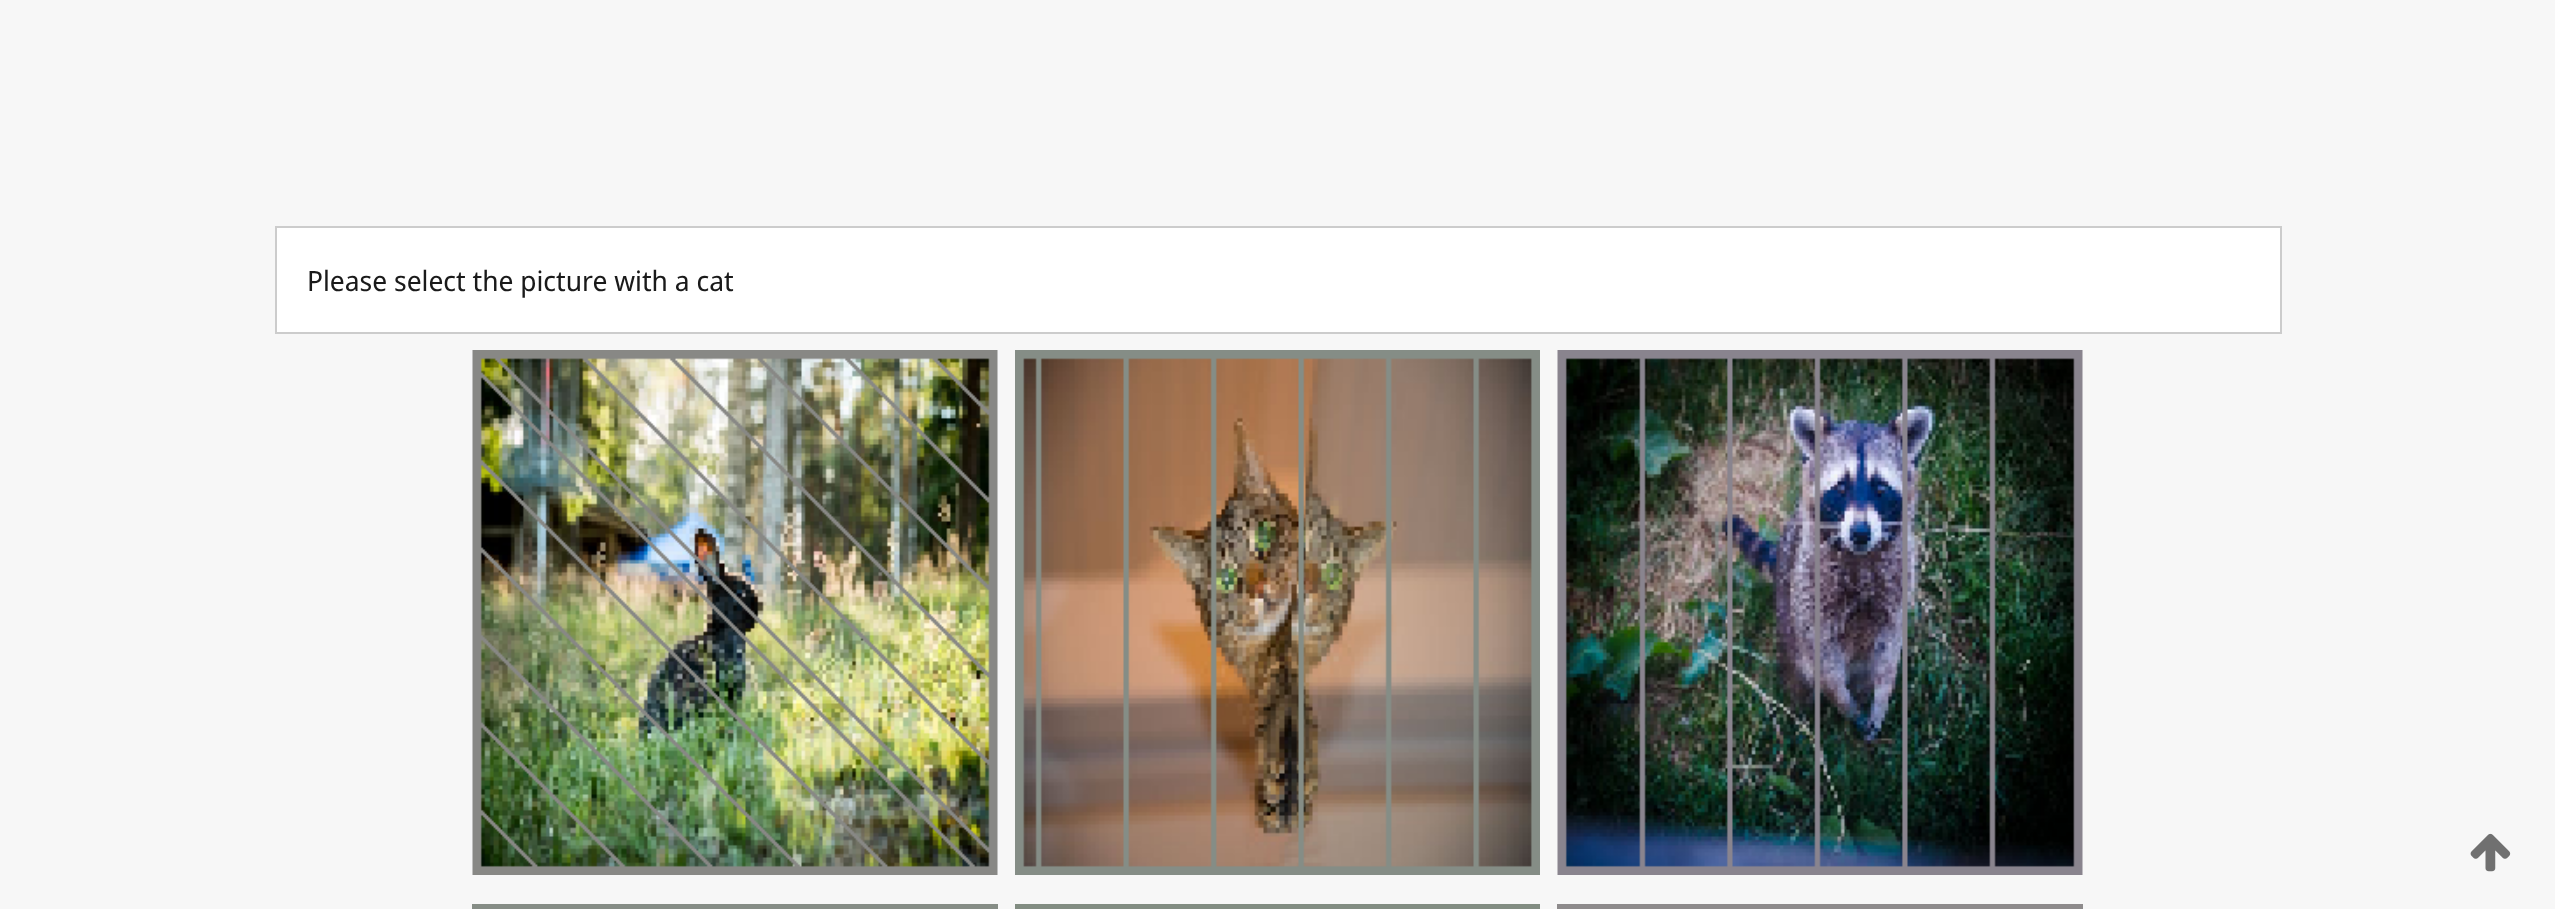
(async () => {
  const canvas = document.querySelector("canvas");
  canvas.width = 2555;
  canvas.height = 909;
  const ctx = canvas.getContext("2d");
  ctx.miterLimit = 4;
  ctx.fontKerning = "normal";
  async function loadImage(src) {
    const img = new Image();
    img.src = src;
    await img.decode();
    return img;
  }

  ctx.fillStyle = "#f7f7f7";
  ctx.fillRect(0, 0, 2555, 909);
  ctx.fillStyle = "#ffffff";
  ctx.beginPath();
  ctx.rect(276, 227, 2005, 106);
  ctx.fill();
  ctx.strokeStyle = "#cccccc";
  ctx.lineWidth = 2;
  ctx.stroke();
  ctx.drawImage(await loadImage("img/1.png"), 472, 350, 526, 525);
  ctx.drawImage(await loadImage("img/2.png"), 1015, 350, 525, 525);
  ctx.drawImage(await loadImage("img/3.png"), 1557, 350, 526, 525);
  for (const [x, y, w, h, color] of [
    [472, 904, 526, 5, "#868d86"],
    [1015, 904, 525, 5, "#828d82"],
    [1557, 904, 526, 5, "#8e8b8c"],
  ]) {
    ctx.fillStyle = color;
    ctx.fillRect(x, y, w, h);
  }
  ctx.drawImage(await loadImage("img/4.png"), 2470, 833, 41, 39);
  ctx.font = "28px Noto Sans Display";
  ctx.fillStyle = "#1a1a1a";
  ctx.fillText("Please select the picture with a cat", 307, 291);
})();
